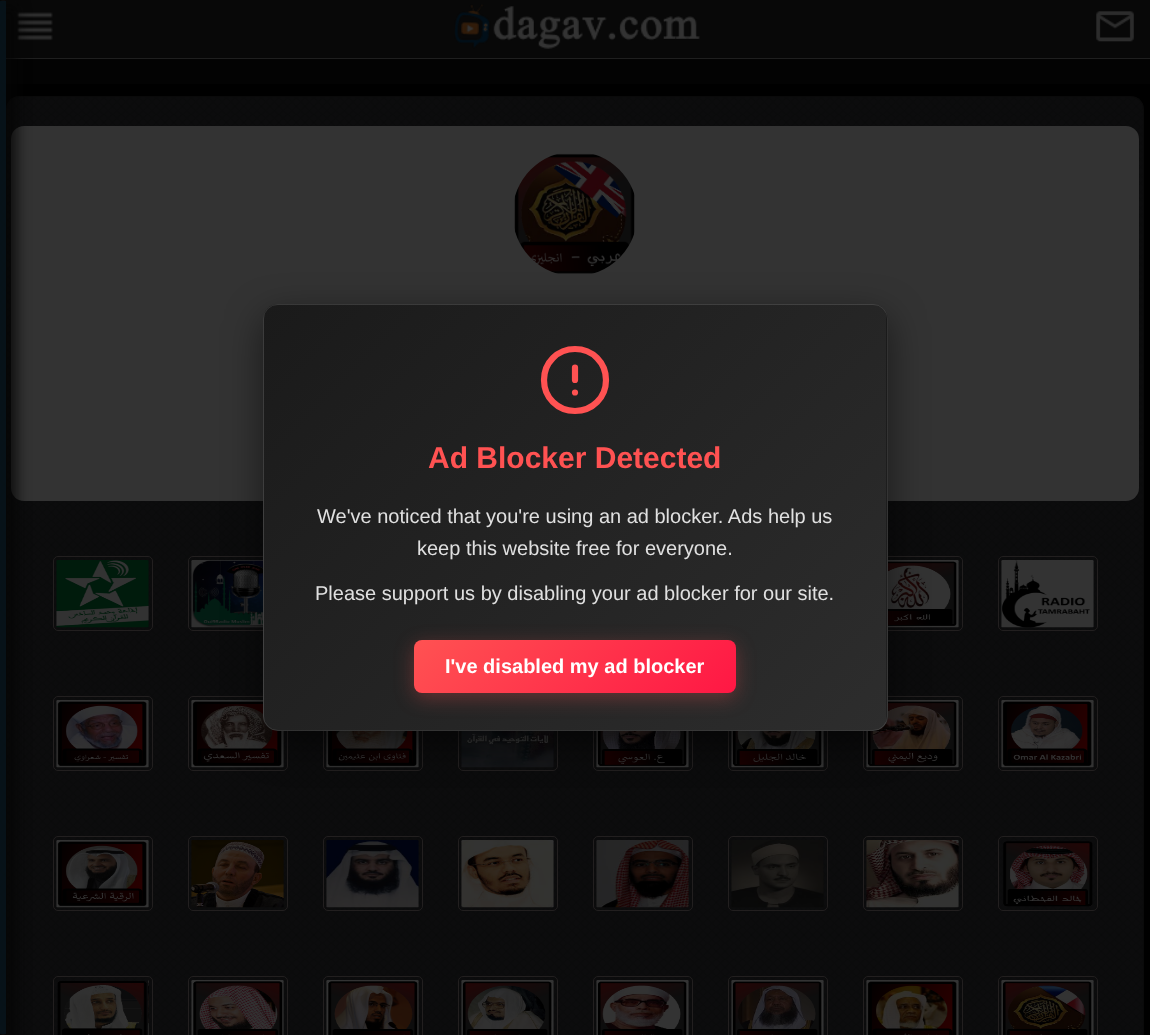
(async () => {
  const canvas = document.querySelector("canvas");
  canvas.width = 1150;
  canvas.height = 1035;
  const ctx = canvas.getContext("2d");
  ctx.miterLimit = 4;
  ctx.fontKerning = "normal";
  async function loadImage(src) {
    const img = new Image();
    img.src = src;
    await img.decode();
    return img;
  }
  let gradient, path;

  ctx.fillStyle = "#000000";
  ctx.fillRect(0, 0, 1150, 1035);
  ctx.fillStyle = "#080808";
  ctx.fillRect(0, 0, 1150, 58);
  ctx.drawImage(await loadImage("img/1.png"), 454, 4, 246, 45);
  ctx.fillStyle = "#1f1f1f";
  ctx.fillRect(0, 58, 1150, 1);
  ctx.drawImage(await loadImage("img/2.png"), 1096, 11, 38, 31);
  ctx.drawImage(await loadImage("img/3.png"), 17, 12, 36, 29);
  ctx.fillStyle = "#030303";
  ctx.fillRect(6, 59, 1144, 25);
  ctx.drawImage(await loadImage("img/5.png"), 6, 96, 1138, 939);
  ctx.beginPath();
  ctx.roundRect(6.5, 96.5, 1137, 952, 12.5);
  ctx.strokeStyle = "#0a0a0a";
  ctx.stroke();
  ctx.fillStyle = "#333333";
  ctx.beginPath();
  ctx.roundRect(11, 126, 1128, 375, 13);
  ctx.fill();
  ctx.fillStyle = "#040404";
  ctx.filter = "blur(7.5px)";
  ctx.beginPath();
  ctx.roundRect(1, 5, 14, 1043, 6);
  ctx.fill();
  ctx.filter = "none";
  ctx.drawImage(await loadImage("img/4.png"), 0, 0, 6, 1035);
  ctx.fillStyle = "rgba(0, 32, 49, 0.34)";
  ctx.fillRect(0, 1, 6, 1033);
  ctx.drawImage(await loadImage("img/6.png"), 514, 153, 121, 121);
  ctx.beginPath();
  ctx.roundRect(53.5, 556.5, 99, 74, 4.5);
  ctx.strokeStyle = "#221f1f";
  ctx.stroke();
  ctx.drawImage(await loadImage("img/7.png"), 56, 560, 93, 68);
  ctx.beginPath();
  ctx.roundRect(188.5, 556.5, 99, 74, 4.5);
  ctx.stroke();
  ctx.drawImage(await loadImage("img/8.png"), 191, 560, 72, 68);
  ctx.beginPath();
  ctx.roundRect(863.5, 556.5, 99, 74, 4.5);
  ctx.stroke();
  ctx.drawImage(await loadImage("img/9.png"), 888, 560, 71, 68);
  ctx.beginPath();
  ctx.roundRect(998.5, 556.5, 99, 74, 4.5);
  ctx.stroke();
  ctx.drawImage(await loadImage("img/10.png"), 1001, 560, 93, 68);
  ctx.beginPath();
  ctx.roundRect(53.5, 696.5, 99, 74, 4.5);
  ctx.stroke();
  ctx.drawImage(await loadImage("img/11.png"), 56, 700, 93, 68);
  ctx.beginPath();
  ctx.roundRect(188.5, 696.5, 99, 74, 4.5);
  ctx.stroke();
  ctx.drawImage(await loadImage("img/12.png"), 191, 700, 93, 68);
  ctx.beginPath();
  ctx.roundRect(323.5, 696.5, 99, 74, 4.5);
  ctx.stroke();
  ctx.drawImage(await loadImage("img/13.png"), 326, 731, 93, 37);
  ctx.beginPath();
  ctx.roundRect(458.5, 696.5, 99, 74, 4.5);
  ctx.stroke();
  ctx.drawImage(await loadImage("img/14.png"), 461, 731, 93, 37);
  ctx.beginPath();
  ctx.roundRect(593.5, 696.5, 99, 74, 4.5);
  ctx.stroke();
  ctx.drawImage(await loadImage("img/15.png"), 596, 731, 93, 37);
  ctx.beginPath();
  ctx.roundRect(728.5, 696.5, 99, 74, 4.5);
  ctx.stroke();
  ctx.drawImage(await loadImage("img/16.png"), 731, 731, 93, 37);
  ctx.beginPath();
  ctx.roundRect(863.5, 696.5, 99, 74, 4.5);
  ctx.stroke();
  ctx.drawImage(await loadImage("img/17.png"), 866, 700, 93, 68);
  ctx.beginPath();
  ctx.roundRect(998.5, 696.5, 99, 74, 4.5);
  ctx.stroke();
  ctx.drawImage(await loadImage("img/18.png"), 1001, 700, 93, 68);
  ctx.beginPath();
  ctx.roundRect(53.5, 836.5, 99, 74, 4.5);
  ctx.stroke();
  ctx.drawImage(await loadImage("img/19.png"), 56, 840, 93, 68);
  ctx.beginPath();
  ctx.roundRect(188.5, 836.5, 99, 74, 4.5);
  ctx.stroke();
  ctx.drawImage(await loadImage("img/20.png"), 191, 840, 93, 68);
  ctx.beginPath();
  ctx.roundRect(323.5, 836.5, 99, 74, 4.5);
  ctx.stroke();
  ctx.drawImage(await loadImage("img/21.png"), 326, 840, 93, 68);
  ctx.beginPath();
  ctx.roundRect(458.5, 836.5, 99, 74, 4.5);
  ctx.stroke();
  ctx.drawImage(await loadImage("img/22.png"), 461, 840, 93, 68);
  ctx.beginPath();
  ctx.roundRect(593.5, 836.5, 99, 74, 4.5);
  ctx.stroke();
  ctx.drawImage(await loadImage("img/23.png"), 596, 840, 93, 68);
  ctx.beginPath();
  ctx.roundRect(728.5, 836.5, 99, 74, 4.5);
  ctx.stroke();
  ctx.drawImage(await loadImage("img/24.png"), 731, 840, 93, 68);
  ctx.beginPath();
  ctx.roundRect(863.5, 836.5, 99, 74, 4.5);
  ctx.stroke();
  ctx.drawImage(await loadImage("img/25.png"), 866, 840, 93, 68);
  ctx.beginPath();
  ctx.roundRect(998.5, 836.5, 99, 74, 4.5);
  ctx.stroke();
  ctx.drawImage(await loadImage("img/26.png"), 1003, 841, 90, 66);
  ctx.beginPath();
  ctx.roundRect(53.5, 976.5, 99, 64, 4.5);
  ctx.stroke();
  ctx.drawImage(await loadImage("img/27.png"), 57, 980, 92, 55);
  ctx.beginPath();
  ctx.roundRect(188.5, 976.5, 99, 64, 4.5);
  ctx.stroke();
  ctx.drawImage(await loadImage("img/28.png"), 191, 980, 93, 55);
  ctx.beginPath();
  ctx.roundRect(323.5, 976.5, 99, 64, 4.5);
  ctx.stroke();
  ctx.drawImage(await loadImage("img/29.png"), 326, 980, 93, 55);
  ctx.beginPath();
  ctx.roundRect(458.5, 976.5, 99, 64, 4.5);
  ctx.stroke();
  ctx.drawImage(await loadImage("img/30.png"), 461, 980, 93, 55);
  ctx.beginPath();
  ctx.roundRect(593.5, 976.5, 99, 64, 4.5);
  ctx.stroke();
  ctx.drawImage(await loadImage("img/31.png"), 596, 980, 93, 55);
  ctx.beginPath();
  ctx.roundRect(728.5, 976.5, 99, 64, 4.5);
  ctx.stroke();
  ctx.drawImage(await loadImage("img/32.png"), 731, 980, 93, 55);
  ctx.beginPath();
  ctx.roundRect(863.5, 976.5, 99, 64, 4.5);
  ctx.stroke();
  ctx.drawImage(await loadImage("img/33.png"), 866, 980, 93, 55);
  ctx.beginPath();
  ctx.roundRect(998.5, 976.5, 99, 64, 4.5);
  ctx.stroke();
  ctx.drawImage(await loadImage("img/34.png"), 1001, 980, 93, 55);
  ctx.fillStyle = "rgba(0, 0, 0, 0.5)";
  ctx.filter = "blur(19px)";
  ctx.beginPath();
  ctx.roundRect(263, 316, 625, 428, 15);
  ctx.fill();
  ctx.filter = "none";
  ctx.save();
  ctx.beginPath();
  ctx.roundRect(263, 304, 625, 427, 15);
  ctx.clip();
  gradient = ctx.createLinearGradient(313, -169, 837, 354);
  gradient.addColorStop(0, "#1a1a1a");
  gradient.addColorStop(1, "#2d2d2d");
  ctx.fillStyle = gradient;
  ctx.fillRect(273, 304, 613, 1);
  gradient = ctx.createLinearGradient(-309, 256, 214, 779);
  gradient.addColorStop(0, "#1a1a1a");
  gradient.addColorStop(1, "#2d2d2d");
  ctx.fillStyle = gradient;
  ctx.fillRect(263, 314, 1, 407);
  gradient = ctx.createLinearGradient(313, 256, 837, 779);
  gradient.addColorStop(0, "#1a1a1a");
  gradient.addColorStop(1, "#2d2d2d");
  ctx.fillStyle = gradient;
  ctx.fillRect(264, 305, 622, 425);
  gradient = ctx.createLinearGradient(936, 256, 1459, 779);
  gradient.addColorStop(0, "#1a1a1a");
  gradient.addColorStop(1, "#2d2d2d");
  ctx.fillStyle = gradient;
  ctx.fillRect(886, 305, 2, 425);
  gradient = ctx.createLinearGradient(313, 681, 837, 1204);
  gradient.addColorStop(0, "#1a1a1a");
  gradient.addColorStop(1, "#2d2d2d");
  ctx.fillStyle = gradient;
  ctx.fillRect(273, 730, 613, 1);
  ctx.restore();
  ctx.beginPath();
  ctx.roundRect(263.5, 304.5, 624, 426, 14.5);
  ctx.strokeStyle = "rgba(255, 255, 255, 0.1)";
  ctx.stroke();
  path = new Path2D("M575 411C592.5 411 606 397.5 606 380C606 362.5 592.5 349 575 349C557.5 349 544 362.5 544 380C544 397.5 557.5 411 575 411Z");
  ctx.strokeStyle = "#ff5252";
  ctx.lineWidth = 6.2;
  ctx.lineCap = "round";
  ctx.lineJoin = "round";
  ctx.stroke(path);
  path = new Path2D("M575 367.5V380M575 392.5H575");
  ctx.stroke(path);
  ctx.fillStyle = "rgba(255, 82, 82, 0.3)";
  ctx.filter = "blur(9.5px)";
  ctx.beginPath();
  ctx.roundRect(414, 645, 322, 53, 8);
  ctx.fill();
  ctx.filter = "none";
  gradient = ctx.createLinearGradient(481, 573, 669, 760);
  gradient.addColorStop(0, "#ff5252");
  gradient.addColorStop(1, "#ff1744");
  ctx.fillStyle = gradient;
  ctx.beginPath();
  ctx.roundRect(414, 640, 322, 53, 8);
  ctx.fill();
  ctx.font = "bold 30px Liberation Sans";
  ctx.fillStyle = "#ff5252";
  ctx.fillText("Ad Blocker Detected", 428, 468);
  ctx.font = "20px Liberation Sans";
  ctx.fillStyle = "#e0e0e0";
  for (const [text, x, y] of [
    ["We've noticed that you're using an ad blocker. Ads help us", 317, 523],
    ["keep this website free for everyone.", 417, 555],
    ["Please support us by disabling your ad blocker for our site.", 315, 600],
  ]) {
    ctx.fillText(text, x, y);
  }
  ctx.font = "bold 20px Liberation Sans";
  ctx.fillStyle = "#ffffff";
  ctx.fillText("I've disabled my ad blocker", 445, 673);
})();
